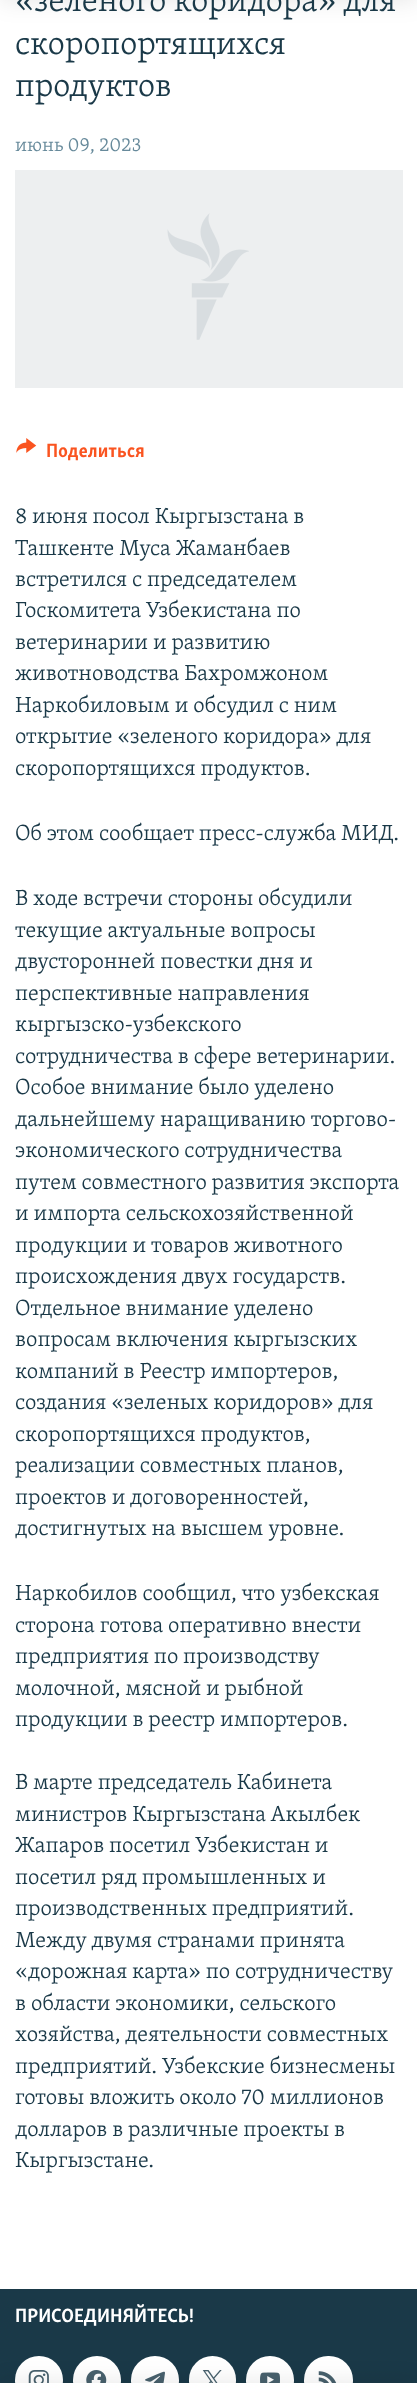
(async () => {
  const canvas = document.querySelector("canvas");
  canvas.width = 417;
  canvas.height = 2383;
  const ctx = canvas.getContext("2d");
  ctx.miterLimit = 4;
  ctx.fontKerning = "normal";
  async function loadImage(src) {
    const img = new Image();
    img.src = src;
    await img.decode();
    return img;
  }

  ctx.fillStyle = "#ffffff";
  ctx.fillRect(0, 0, 417, 2383);
  ctx.fillStyle = "rgba(0, 0, 0, 0.1)";
  ctx.filter = "blur(12.5px)";
  ctx.beginPath();
  ctx.rect(0, -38, 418, 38);
  ctx.fill();
  ctx.filter = "none";
  ctx.fillStyle = "#1a3948";
  ctx.fillRect(0, 2289, 417, 94);
  ctx.fillStyle = "#ffffff";
  ctx.beginPath();
  ctx.arc(39, 2380, 24, 0, Math.PI * 2);
  ctx.fill();
  ctx.drawImage(await loadImage("img/3.png"), 28, 2370, 21, 13);
  ctx.beginPath();
  ctx.arc(97, 2380, 24, 0, Math.PI * 2);
  ctx.fill();
  ctx.drawImage(await loadImage("img/4.png"), 86, 2370, 21, 13);
  ctx.beginPath();
  ctx.arc(155, 2380, 24, 0, Math.PI * 2);
  ctx.fill();
  ctx.drawImage(await loadImage("img/5.png"), 145, 2371, 20, 12);
  ctx.beginPath();
  ctx.roundRect(189, 2356, 47, 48, 23.5);
  ctx.fill();
  ctx.drawImage(await loadImage("img/6.png"), 202, 2370, 20, 13);
  ctx.beginPath();
  ctx.arc(270, 2380, 24, 0, Math.PI * 2);
  ctx.fill();
  ctx.drawImage(await loadImage("img/7.png"), 260, 2372, 20, 11);
  ctx.beginPath();
  ctx.roundRect(304, 2356, 49, 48, 24);
  ctx.fill();
  ctx.drawImage(await loadImage("img/8.png"), 318, 2371, 19, 12);
  ctx.fillStyle = "rgba(0, 0, 0, 0.1)";
  ctx.filter = "blur(12.5px)";
  ctx.beginPath();
  ctx.rect(0, 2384, 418, 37);
  ctx.fill();
  ctx.filter = "none";
  ctx.fillStyle = "#edeff0";
  ctx.fillRect(15, 170, 388, 218);
  ctx.drawImage(await loadImage("img/1.png"), 167, 213, 82, 127);
  ctx.drawImage(await loadImage("img/2.png"), 16, 438, 21, 15);
  ctx.font = "300 33.75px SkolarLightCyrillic";
  ctx.fillStyle = "#1a3948";
  for (const [text, x, y] of [
    ["«зеленого коридора» для", 15, 11],
    ["скоропортящихся", 15, 54],
    ["продуктов", 15, 96],
  ]) {
    ctx.fillText(text, x, y);
  }
  ctx.font = "300 19.75px SkolarLightCyrillic";
  ctx.fillStyle = "#678a9b";
  ctx.fillText("июнь 09, 2023", 15, 151);
  ctx.font = "bold 19.75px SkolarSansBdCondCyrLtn";
  ctx.fillStyle = "#fa5420";
  ctx.fillText("Поделиться", 46, 457);
  ctx.font = "300 22.5px SkolarLightCyrillic";
  ctx.fillStyle = "#1a3948";
  for (const [text, x, y] of [
    ["8 июня посол Кыргызстана в", 15, 523],
    ["Ташкенте Муса Жаманбаев", 15, 555],
    ["встретился с председателем", 15, 586],
    ["Госкомитета Узбекистана по", 15, 617],
    ["ветеринарии и развитию", 15, 649],
    ["животноводства Бахромжоном", 15, 680],
    ["Наркобиловым и обсудил c ним", 15, 712],
    ["открытие «зеленого коридора» для", 15, 743],
    ["скоропортящихся продуктов.", 15, 775],
    ["Об этом сообщает пресс-служба МИД.", 15, 840],
    ["В ходе встречи стороны обсудили", 15, 905],
    ["текущие актуальные вопросы", 15, 937],
    ["двусторонней повестки дня и", 15, 968],
    ["перспективные направления", 15, 1000],
    ["кыргызско-узбекского", 15, 1031],
    ["сотрудничества в сфере ветеринарии.", 15, 1063],
    ["Особое внимание было уделено", 15, 1094],
    ["дальнейшему наращиванию торгово-", 15, 1126],
    ["экономического сотрудничества", 15, 1157],
    ["путем совместного развития экспорта", 15, 1189],
    ["и импорта сельскохозяйственной", 15, 1220],
    ["продукции и товаров животного", 15, 1252],
    ["происхождения двух государств.", 15, 1283],
    ["Отдельное внимание уделено", 15, 1315],
    ["вопросам включения кыргызских", 15, 1346],
    ["компаний в Реестр импортеров,", 15, 1378],
    ["создания «зеленых коридоров» для", 15, 1409],
    ["скоропортящихся продуктов,", 15, 1441],
    ["реализации совместных планов,", 15, 1472],
    ["проектов и договоренностей,", 15, 1504],
    ["достигнутых на высшем уровне.", 15, 1535],
    ["Наркобилов сообщил, что узбекская", 15, 1600],
    ["сторона готова оперативно внести", 15, 1632],
    ["предприятия по производству", 15, 1663],
    ["молочной, мясной и рыбной", 15, 1695],
    ["продукции в реестр импортеров.", 15, 1726],
    ["В марте председатель Кабинета", 15, 1789],
    ["министров Кыргызстана Акылбек", 15, 1821],
    ["Жапаров посетил Узбекистан и", 15, 1852],
    ["посетил ряд промышленных и", 15, 1884],
    ["производственных предприятий.", 15, 1915],
    ["Между двумя странами принята", 15, 1947],
    ["«дорожная карта» по сотрудничеству", 15, 1978],
    ["в области экономики, сельского", 15, 2010],
    ["хозяйства, деятельности совместных", 15, 2041],
    ["предприятий. Узбекские бизнесмены", 15, 2073],
    ["готовы вложить около 70 миллионов", 15, 2104],
    ["долларов в различные проекты в", 15, 2136],
    ["Кыргызстане.", 15, 2167],
  ]) {
    ctx.fillText(text, x, y);
  }
  ctx.font = "bold 19.75px SkolarSansBdCondCyrLtn";
  ctx.fillStyle = "#ffffff";
  ctx.fillText("ПРИСОЕДИНЯЙТЕСЬ!", 15, 2322);
})();
